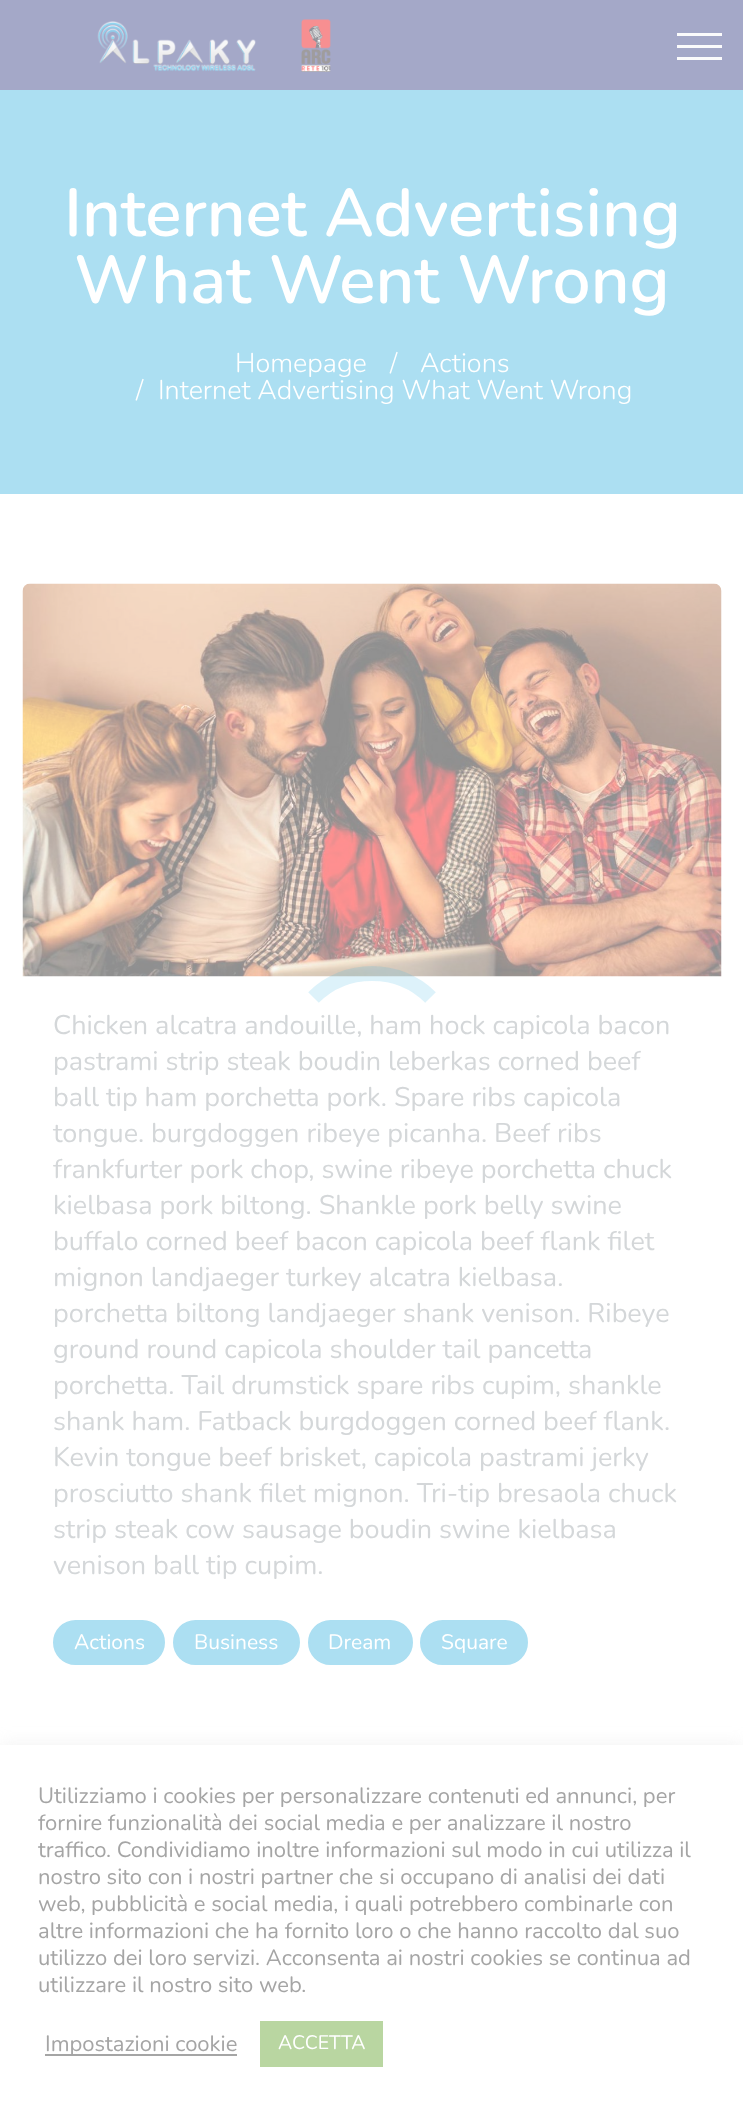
(async () => {
  const canvas = document.querySelector("canvas");
  canvas.width = 743;
  canvas.height = 2112;
  const ctx = canvas.getContext("2d");
  ctx.miterLimit = 4;
  ctx.fontKerning = "normal";
  async function loadImage(src) {
    const img = new Image();
    img.src = src;
    await img.decode();
    return img;
  }
  let path;

  ctx.fillStyle = "#ffffff";
  ctx.fillRect(0, 0, 743, 2112);
  ctx.fillStyle = "#a4a8c8";
  ctx.fillRect(0, 0, 743, 90);
  ctx.drawImage(await loadImage("img/1.png"), 97, 19, 234, 53);
  for (const [x, y, w, h, color] of [
    [677, 33, 45, 3, "#fbfbfc"],
    [677, 57, 45, 3, "#fbfbfc"],
    [677, 45, 45, 3, "#fbfbfc"],
    [0, 90, 743, 404, "#acdff2"],
  ]) {
    ctx.fillStyle = color;
    ctx.fillRect(x, y, w, h);
  }
  ctx.drawImage(await loadImage("img/2.png"), 22, 583, 700, 394);
  ctx.beginPath();
  ctx.roundRect(54, 1621, 110, 43, 21.5);
  ctx.fill();
  ctx.strokeStyle = "#acdff2";
  ctx.lineWidth = 2;
  ctx.stroke();
  ctx.beginPath();
  ctx.roundRect(174, 1621, 125, 43, 21.5);
  ctx.fill();
  ctx.stroke();
  ctx.beginPath();
  ctx.roundRect(309, 1621, 103, 43, 21.5);
  ctx.fill();
  ctx.stroke();
  ctx.beginPath();
  ctx.roundRect(421, 1621, 106, 43, 21.5);
  ctx.fill();
  ctx.stroke();
  path = new Path2D("M313.5 997.5C345.5 965.5 398.5 965.5 430.5 997.5");
  ctx.strokeStyle = "rgba(66, 183, 226, 0.18)";
  ctx.lineWidth = 15;
  ctx.stroke(path);
  ctx.fillStyle = "rgba(218, 218, 218, 0.3)";
  ctx.filter = "blur(7.5px)";
  ctx.beginPath();
  ctx.rect(0, 1743, 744, 368);
  ctx.fill();
  ctx.filter = "none";
  for (const [x, y, w, h, color] of [
    [0, 1745, 743, 367, "#ffffff"],
    [45, 2054, 192, 2, "#a5a5a5"],
    [260, 2021, 123, 46, "#b9d6a1"],
  ]) {
    ctx.fillStyle = color;
    ctx.fillRect(x, y, w, h);
  }
  ctx.font = "600 67.5px Nunito";
  ctx.fillStyle = "#ffffff";
  ctx.fillText("Internet Advertising", 64, 236);
  ctx.fillText("What Went Wrong", 74, 303);
  ctx.font = "300 27px Nunito";
  for (const [text, x, y] of [
    ["Homepage", 235, 372],
    ["/", 390, 372],
    ["Actions", 420, 372],
    ["/", 136, 399],
    ["Internet Advertising What Went Wrong", 158, 399],
  ]) {
    ctx.fillText(text, x, y);
  }
  ctx.font = "27px Nunito";
  ctx.fillStyle = "#d4d7d9";
  for (const [text, x, y] of [
    ["Chicken alcatra andouille, ham hock capicola bacon", 53, 1034],
    ["pastrami strip steak boudin leberkas corned beef", 53, 1070],
    ["ball tip ham porchetta pork. Spare ribs capicola", 53, 1106],
    ["tongue. burgdoggen ribeye picanha. Beef ribs", 53, 1142],
    ["frankfurter pork chop, swine ribeye porchetta chuck", 53, 1178],
    ["kielbasa pork biltong. Shankle pork belly swine", 53, 1214],
    ["buffalo corned beef bacon capicola beef flank filet", 53, 1250],
    ["mignon landjaeger turkey alcatra kielbasa.", 53, 1286],
    ["porchetta biltong landjaeger shank venison. Ribeye", 53, 1322],
    ["ground round capicola shoulder tail pancetta", 53, 1358],
    ["porchetta. Tail drumstick spare ribs cupim, shankle", 53, 1394],
    ["shank ham. Fatback burgdoggen corned beef flank.", 53, 1430],
    ["Kevin tongue beef brisket, capicola pastrami jerky", 53, 1466],
    ["prosciutto shank filet mignon. Tri-tip bresaola chuck", 53, 1502],
    ["strip steak cow sausage boudin swine kielbasa", 53, 1538],
    ["venison ball tip cupim.", 53, 1574],
  ]) {
    ctx.fillText(text, x, y);
  }
  ctx.font = "21px Nunito";
  ctx.fillStyle = "#ffffff";
  for (const [text, x, y] of [
    ["Actions", 74, 1649],
    ["Business", 194, 1649],
    ["Dream", 328, 1649],
    ["Square", 441, 1649],
  ]) {
    ctx.fillText(text, x, y);
  }
  ctx.font = "22px Nunito";
  ctx.fillStyle = "#a5a5a5";
  for (const [text, x, y] of [
    ["Utilizziamo i cookies per personalizzare contenuti ed annunci, per", 38, 1803],
    ["fornire funzionalità dei social media e per analizzare il nostro", 38, 1830],
    ["traffico. Condividiamo inoltre informazioni sul modo in cui utilizza il", 38, 1857],
    ["nostro sito con i nostri partner che si occupano di analisi dei dati", 38, 1884],
    ["web, pubblicità e social media, i quali potrebbero combinarle con", 38, 1911],
    ["altre informazioni che ha fornito loro o che hanno raccolto dal suo", 38, 1938],
    ["utilizzo dei loro servizi. Acconsenta ai nostri cookies se continua ad", 38, 1965],
    ["utilizzare il nostro sito web.", 38, 1992],
    ["Impostazioni cookie", 45, 2051],
  ]) {
    ctx.fillText(text, x, y);
  }
  ctx.font = "19.5px Nunito";
  ctx.fillStyle = "#ffffff";
  ctx.fillText("ACCETTA", 278, 2049);
})();
